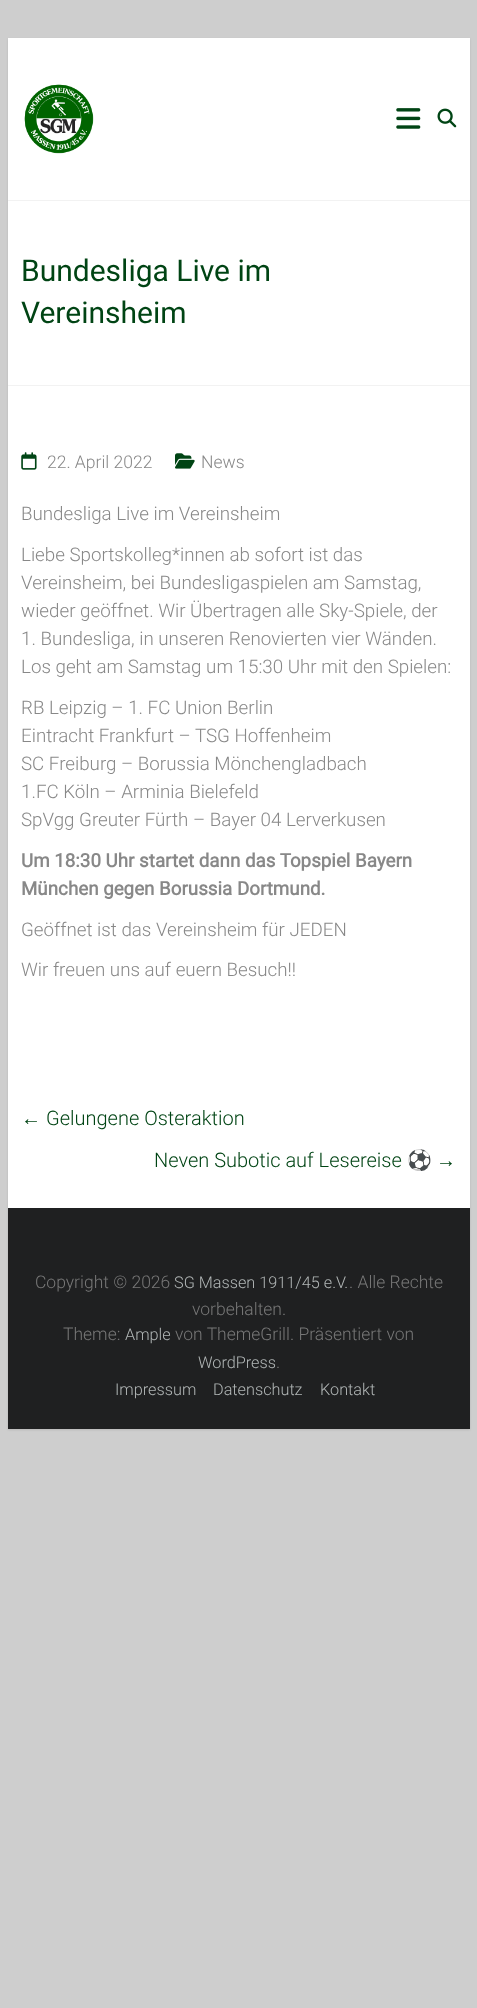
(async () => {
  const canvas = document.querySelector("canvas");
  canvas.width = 477;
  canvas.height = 2008;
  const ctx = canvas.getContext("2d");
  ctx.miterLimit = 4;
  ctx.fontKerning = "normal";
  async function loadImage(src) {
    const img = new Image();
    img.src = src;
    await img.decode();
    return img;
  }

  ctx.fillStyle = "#cecece";
  ctx.fillRect(0, 0, 477, 2008);
  ctx.fillStyle = "rgba(0, 0, 0, 0.1)";
  ctx.filter = "blur(1px)";
  ctx.beginPath();
  ctx.rect(8, 39, 462, 1391);
  ctx.fill();
  ctx.filter = "none";
  ctx.fillStyle = "#ffffff";
  ctx.fillRect(8, 38, 462, 1170);
  ctx.fillStyle = "#f2f2f2";
  ctx.fillRect(8, 200, 462, 1);
  ctx.drawImage(await loadImage("img/1.png"), 24, 84, 70, 70);
  ctx.drawImage(await loadImage("img/2.png"), 396, 108, 25, 21);
  ctx.drawImage(await loadImage("img/3.png"), 437, 108, 20, 20);
  ctx.fillRect(8, 385, 462, 1);
  ctx.drawImage(await loadImage("img/4.png"), 21, 452, 16, 18);
  ctx.drawImage(await loadImage("img/5.png"), 175, 453, 20, 16);
  ctx.fillStyle = "#1f2021";
  ctx.fillRect(8, 1208, 462, 221);
  ctx.font = "30px Roboto";
  ctx.fillStyle = "#004414";
  ctx.fillText("Bundesliga Live im", 21, 281);
  ctx.fillText("Vereinsheim", 21, 323);
  ctx.font = "300 17.5px Roboto";
  ctx.fillStyle = "#888888";
  ctx.fillText("22. April 2022", 47, 468);
  ctx.fillText("News", 201, 468);
  ctx.font = "300 18.75px Roboto";
  for (const [text, x, y] of [
    ["Bundesliga Live im Vereinsheim", 21, 520],
    ["Liebe Sportskolleg*innen ab sofort ist das", 21, 561],
    ["Vereinsheim, bei Bundesligaspielen am Samstag,", 21, 589],
    ["wieder geöffnet. Wir Übertragen alle Sky-Spiele, der", 21, 617],
    ["1. Bundesliga, in unseren Renovierten vier Wänden.", 21, 645],
    ["Los geht am Samstag um 15:30 Uhr mit den Spielen:", 21, 673],
    ["RB Leipzig – 1. FC Union Berlin", 21, 714],
    ["Eintracht Frankfurt – TSG Hoffenheim", 21, 742],
    ["SC Freiburg – Borussia Mönchengladbach", 21, 770],
    ["1.FC Köln – Arminia Bielefeld", 21, 798],
    ["SpVgg Greuter Fürth – Bayer 04 Lerverkusen", 21, 826],
  ]) {
    ctx.fillText(text, x, y);
  }
  ctx.font = "bold 18.75px Roboto";
  ctx.fillText("Um 18:30 Uhr startet dann das Topspiel Bayern", 21, 867);
  ctx.fillText("München gegen Borussia Dortmund.", 21, 895);
  ctx.font = "300 18.75px Roboto";
  ctx.fillText("Geöffnet ist das Vereinsheim für JEDEN", 21, 936);
  ctx.fillText("Wir freuen uns auf euern Besuch!!", 21, 976);
  ctx.font = "20px Liberation Sans";
  ctx.fillStyle = "#004414";
  ctx.fillText("←", 21, 1125);
  ctx.font = "300 20px Roboto";
  ctx.fillText("Gelungene Osteraktion", 46, 1125);
  ctx.fillText("Neven Subotic auf Lesereise", 154, 1167);
  ctx.font = "20px Noto Color Emoji";
  ctx.fillText("⚽️", 407, 1167);
  ctx.font = "20px Liberation Sans";
  ctx.fillText("→", 436, 1167);
  ctx.font = "300 17.5px Roboto";
  ctx.fillStyle = "#777777";
  ctx.fillText("Copyright © 2026", 35, 1288);
  ctx.font = "300 16.25px Roboto";
  ctx.fillStyle = "#b1b6b6";
  ctx.fillText("SG Massen 1911/45 e.V.", 174, 1288);
  ctx.font = "300 17.5px Roboto";
  ctx.fillStyle = "#777777";
  for (const [text, x, y] of [
    [". Alle Rechte", 349, 1288],
    ["vorbehalten.", 192, 1315],
    ["Theme:", 63, 1340],
  ]) {
    ctx.fillText(text, x, y);
  }
  ctx.font = "300 16.25px Roboto";
  ctx.fillStyle = "#b1b6b6";
  ctx.fillText("Ample", 125, 1340);
  ctx.font = "300 17.5px Roboto";
  ctx.fillStyle = "#777777";
  ctx.fillText("von ThemeGrill. Präsentiert von", 175, 1340);
  ctx.font = "300 16.25px Roboto";
  ctx.fillStyle = "#b1b6b6";
  ctx.fillText("WordPress", 198, 1368);
  ctx.font = "300 17.5px Roboto";
  ctx.fillStyle = "#777777";
  ctx.fillText(".", 276, 1368);
  ctx.font = "300 16.25px Roboto";
  ctx.fillStyle = "#b1b6b6";
  for (const [text, x, y] of [
    ["Impressum", 115, 1395],
    ["Datenschutz", 213, 1395],
    ["Kontakt", 320, 1395],
  ]) {
    ctx.fillText(text, x, y);
  }
})();
